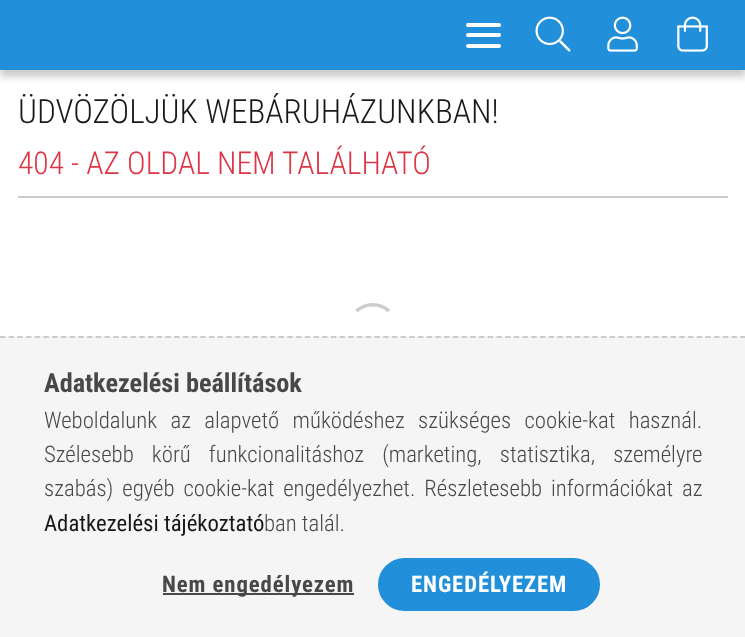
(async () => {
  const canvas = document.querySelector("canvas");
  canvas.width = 745;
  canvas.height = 637;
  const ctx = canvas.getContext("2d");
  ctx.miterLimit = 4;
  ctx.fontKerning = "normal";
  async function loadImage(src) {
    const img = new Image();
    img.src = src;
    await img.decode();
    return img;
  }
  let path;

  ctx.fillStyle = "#ffffff";
  ctx.fillRect(0, 0, 745, 637);
  ctx.fillStyle = "rgba(0, 0, 0, 0.2)";
  ctx.filter = "blur(3.5px)";
  ctx.beginPath();
  ctx.rect(0, 7, 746, 70);
  ctx.fill();
  ctx.filter = "none";
  ctx.fillStyle = "#218fd9";
  ctx.fillRect(0, 0, 745, 70);
  ctx.fillStyle = "#ffffff";
  ctx.beginPath();
  ctx.roundRect(466, 23, 35, 4, 2);
  ctx.fill();
  ctx.beginPath();
  ctx.roundRect(466, 33, 35, 4, 2);
  ctx.fill();
  ctx.beginPath();
  ctx.roundRect(466, 44, 35, 4, 2);
  ctx.fill();
  ctx.drawImage(await loadImage("img/1.png"), 535, 16, 36, 36);
  ctx.drawImage(await loadImage("img/2.png"), 607, 16, 31, 36);
  ctx.drawImage(await loadImage("img/3.png"), 677, 16, 31, 36);
  ctx.fillStyle = "#cccccc";
  ctx.fillRect(18, 196, 710, 2);
  path = new Path2D("M356.5 311C365.5 302.5 380 302.5 389 311");
  ctx.strokeStyle = "#cccccc";
  ctx.lineWidth = 3.5;
  ctx.stroke(path);
  ctx.fillStyle = "#f5f5f5";
  ctx.fillRect(0, 336, 745, 301);
  path = new Path2D("M0 337H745.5");
  ctx.lineWidth = 1.8;
  ctx.setLineDash([5.25, 3.46]);
  ctx.stroke(path);
  ctx.fillStyle = "#484848";
  ctx.fillRect(163, 593, 191, 2);
  ctx.fillStyle = "#218fd9";
  ctx.beginPath();
  ctx.roundRect(379, 559, 220, 51, 25.5);
  ctx.fill();
  ctx.strokeStyle = "#218fd9";
  ctx.lineWidth = 2;
  ctx.setLineDash([]);
  ctx.stroke();
  ctx.font = "300 33.25px Roboto Condensed";
  ctx.fillStyle = "#181818";
  ctx.fillText("ÜDVÖZÖLJÜK WEBÁRUHÁZUNKBAN!", 18, 123);
  ctx.font = "300 31.5px Roboto Condensed";
  ctx.fillStyle = "#dc3545";
  ctx.fillText("404 - AZ OLDAL NEM TALÁLHATÓ", 18, 174);
  ctx.font = "bold 26.25px Roboto Condensed";
  ctx.fillStyle = "#484848";
  ctx.fillText("Adatkezelési beállítások", 44, 392);
  ctx.wordSpacing = "8.25px";
  ctx.font = "300 22.75px Roboto Condensed";
  ctx.fillText("Weboldalunk az alapvető működéshez szükséges cookie-kat használ.", 44, 428);
  ctx.wordSpacing = "13px";
  ctx.fillText("Szélesebb körű funkcionalitáshoz (marketing, statisztika, személyre", 44, 462);
  ctx.wordSpacing = "3.75px";
  ctx.fillText("szabás) egyéb cookie-kat engedélyezhet. Részletesebb információkat az", 44, 496);
  ctx.wordSpacing = "0px";
  ctx.font = "22.75px Roboto Condensed";
  ctx.fillStyle = "#181818";
  ctx.fillText("Adatkezelési tájékoztató", 44, 531);
  ctx.font = "300 22.75px Roboto Condensed";
  ctx.fillStyle = "#484848";
  ctx.fillText("ban talál.", 264, 531);
  ctx.letterSpacing = "0.9px";
  ctx.font = "bold 22.75px Roboto Condensed";
  ctx.fillText("Nem engedélyezem", 162, 592);
  ctx.fillStyle = "#ffffff";
  ctx.fillText("ENGEDÉLYEZEM", 411, 592);
})();
